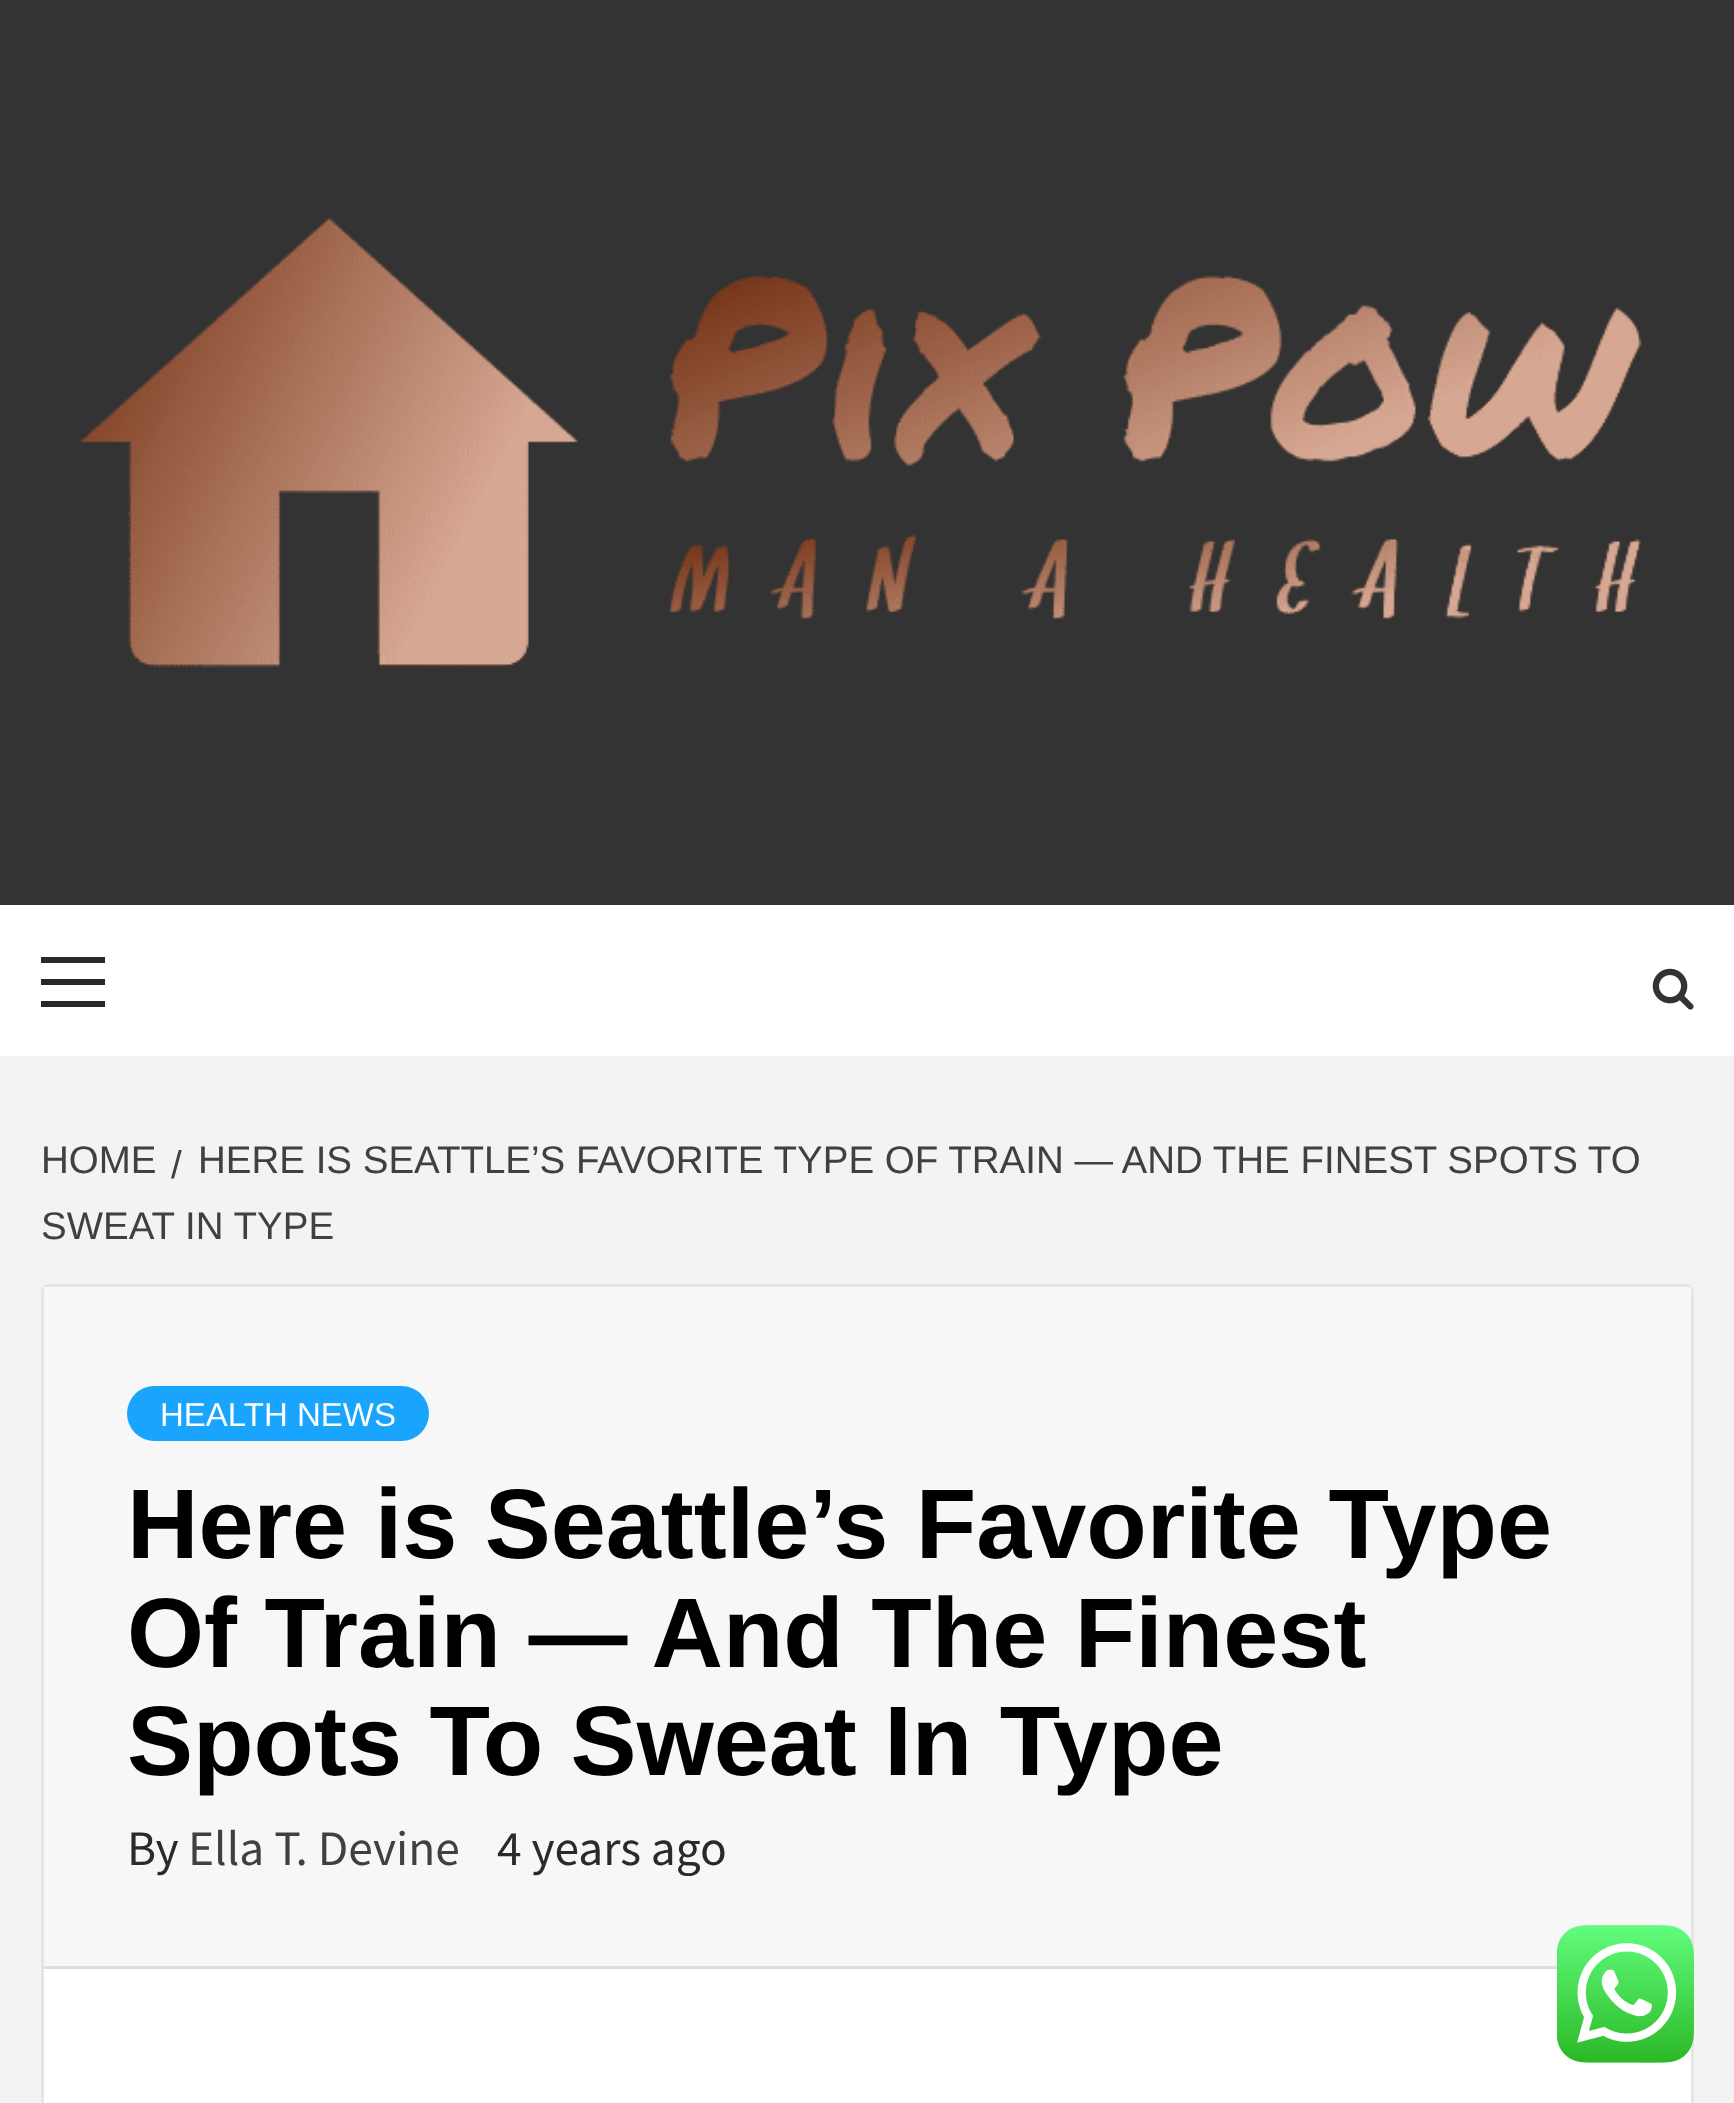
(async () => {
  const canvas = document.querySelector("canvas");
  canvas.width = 1734;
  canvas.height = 2103;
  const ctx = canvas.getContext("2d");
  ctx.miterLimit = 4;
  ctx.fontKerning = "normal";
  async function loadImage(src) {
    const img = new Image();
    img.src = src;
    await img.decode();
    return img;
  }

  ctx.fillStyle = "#f3f3f3";
  ctx.fillRect(0, 0, 1734, 2103);
  ctx.fillStyle = "#333333";
  ctx.fillRect(0, 0, 1734, 905);
  ctx.drawImage(await loadImage("img/1.png"), 79, 217, 1563, 451);
  for (const [x, y, w, h, color] of [
    [0, 905, 1734, 151, "#ffffff"],
    [41, 979, 64, 6, "#282828"],
    [41, 957, 64, 6, "#282828"],
    [41, 1001, 64, 6, "#282828"],
  ]) {
    ctx.fillStyle = color;
    ctx.fillRect(x, y, w, h);
  }
  ctx.drawImage(await loadImage("img/2.png"), 1652, 968, 42, 42);
  ctx.fillStyle = "#ffffff";
  ctx.beginPath();
  ctx.roundRect(41, 1284, 1653, 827, 8);
  ctx.fill();
  ctx.beginPath();
  ctx.roundRect(42.5, 1285.5, 1650, 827, 6.5);
  ctx.strokeStyle = "rgba(0, 1, 1, 0.1)";
  ctx.lineWidth = 3;
  ctx.stroke();
  ctx.fillStyle = "#f7f7f7";
  ctx.fillRect(44, 1287, 1647, 679);
  ctx.fillStyle = "#dedede";
  ctx.fillRect(44, 1966, 1513, 3);
  ctx.fillStyle = "#19a5fe";
  ctx.beginPath();
  ctx.roundRect(127, 1386, 302, 55, 27.5);
  ctx.fill();
  ctx.drawImage(await loadImage("img/3.png"), 1557, 1925, 137, 138);
  ctx.font = "38.5px Liberation Sans";
  ctx.fillStyle = "#404040";
  for (const [text, x, y] of [
    ["/", 171, 1178],
    ["HERE IS SEATTLE’S FAVORITE TYPE OF TRAIN — AND THE FINEST SPOTS TO", 198, 1173],
    ["SWEAT IN TYPE", 41, 1239],
    ["HOME", 41, 1173],
  ]) {
    ctx.fillText(text, x, y);
  }
  ctx.font = "33px Liberation Sans";
  ctx.fillStyle = "#fefefe";
  ctx.fillText("HEALTH NEWS", 160, 1426);
  ctx.font = "bold 99px Liberation Sans";
  ctx.fillStyle = "#000000";
  for (const [text, x, y] of [
    ["Here is Seattle’s Favorite Type", 127, 1558],
    ["Of Train — And The Finest", 127, 1667],
    ["Spots To Sweat In Type", 127, 1775],
  ]) {
    ctx.fillText(text, x, y);
  }
  ctx.font = "49.5px Source Sans Pro";
  ctx.fillStyle = "#2a2a2a";
  ctx.fillText("By", 127, 1865);
  ctx.fillStyle = "#404040";
  ctx.fillText("Ella T. Devine", 188, 1865);
  ctx.fillStyle = "#2a2a2a";
  ctx.fillText("4 years ago", 497, 1865);
})();
